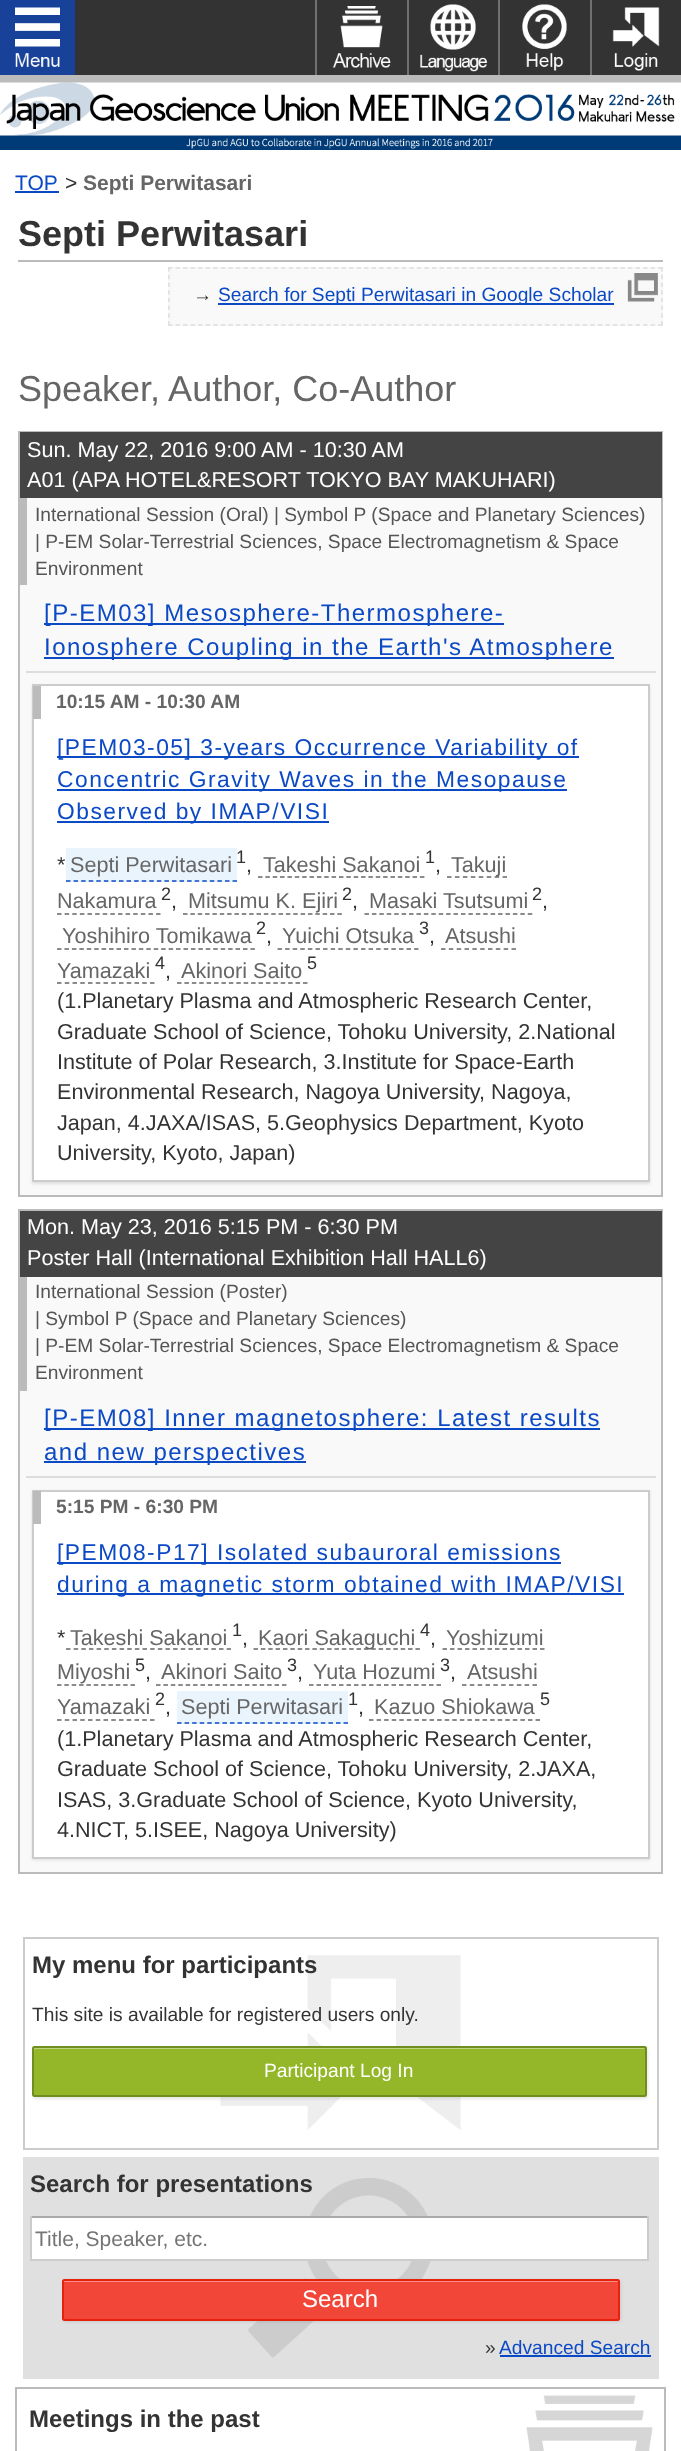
(async () => {
  const canvas = document.querySelector("canvas");
  canvas.width = 681;
  canvas.height = 2451;
  const ctx = canvas.getContext("2d");
  ctx.miterLimit = 4;
  ctx.fontKerning = "normal";
  async function loadImage(src) {
    const img = new Image();
    img.src = src;
    await img.decode();
    return img;
  }
  let path;

  ctx.fillStyle = "#333333";
  ctx.fillRect(0, 0, 681, 2451);
  ctx.fillStyle = "#bbbbbb";
  ctx.fillRect(0, 75, 681, 8);
  ctx.fillStyle = "#184299";
  ctx.fillRect(0, 0, 75, 75);
  ctx.drawImage(await loadImage("img/1.png"), 15, 7, 45, 60);
  ctx.fillStyle = "#707070";
  ctx.fillRect(315, 0, 2, 75);
  ctx.drawImage(await loadImage("img/2.png"), 333, 6, 58, 62);
  ctx.fillRect(407, 0, 2, 75);
  ctx.drawImage(await loadImage("img/3.png"), 420, 4, 68, 68);
  ctx.fillRect(498, 0, 2, 75);
  ctx.drawImage(await loadImage("img/4.png"), 522, 4, 45, 67);
  ctx.fillRect(590, 0, 2, 75);
  ctx.drawImage(await loadImage("img/5.png"), 612, 7, 48, 64);
  ctx.drawImage(await loadImage("img/6.png"), 0, 82, 681, 68);
  for (const [x, y, w, h, color] of [
    [0, 150, 681, 2301, "#ffffff"],
    [15, 191, 44, 2, "#0c49c5"],
    [18, 260, 645, 2, "#bbbbbb"],
    [168, 267, 495, 59, "#f9f9f9"],
  ]) {
    ctx.fillStyle = color;
    ctx.fillRect(x, y, w, h);
  }
  path = new Path2D("M168 268H663");
  ctx.strokeStyle = "#dddddd";
  ctx.lineWidth = 1.5;
  ctx.setLineDash([4.5, 3.04]);
  ctx.stroke(path);
  path = new Path2D("M662 267V325.5");
  ctx.setLineDash([4.5, 3.21]);
  ctx.stroke(path);
  path = new Path2D("M168 325H663");
  ctx.setLineDash([4.5, 3.04]);
  ctx.stroke(path);
  path = new Path2D("M169 267V325.5");
  ctx.setLineDash([4.5, 3.21]);
  ctx.stroke(path);
  ctx.fillStyle = "#0c49c5";
  ctx.fillRect(218, 303, 396, 2);
  ctx.drawImage(await loadImage("img/7.png"), 627, 273, 31, 29);
  ctx.fillStyle = "#f9f9f9";
  ctx.fillRect(20, 498, 641, 697);
  ctx.strokeStyle = "#bbbbbb";
  ctx.lineWidth = 2;
  ctx.setLineDash([]);
  ctx.strokeRect(19, 432, 643, 764);
  for (const [x, y, w, h, color] of [
    [20, 432, 642, 66, "#444444"],
    [20, 498, 7, 87, "#bbbbbb"],
    [26, 671, 630, 2, "#dddddd"],
    [44, 623, 460, 2, "#0c49c5"],
    [44, 657, 570, 2, "#0c49c5"],
  ]) {
    ctx.fillStyle = color;
    ctx.fillRect(x, y, w, h);
  }
  ctx.fillStyle = "rgba(0, 0, 0, 0.1)";
  ctx.filter = "blur(1.5px)";
  ctx.beginPath();
  ctx.rect(32, 686, 618, 498);
  ctx.fill();
  ctx.filter = "none";
  ctx.fillStyle = "#ffffff";
  ctx.beginPath();
  ctx.rect(33, 685, 616, 496);
  ctx.fill();
  ctx.strokeStyle = "#cccccc";
  ctx.stroke();
  for (const [x, y, w, h, color] of [
    [33, 686, 8, 33, "#bbbbbb"],
    [57, 756, 522, 2, "#0c49c5"],
    [57, 789, 510, 2, "#0c49c5"],
    [57, 821, 272, 2, "#0c49c5"],
    [66, 848, 171, 34, "#eaf4fc"],
  ]) {
    ctx.fillStyle = color;
    ctx.fillRect(x, y, w, h);
  }
  path = new Path2D("M66 881H237");
  ctx.strokeStyle = "#0c49c5";
  ctx.lineWidth = 1.5;
  ctx.setLineDash([4.5, 3.07]);
  ctx.stroke(path);
  path = new Path2D("M258 877H424.5");
  ctx.strokeStyle = "#666666";
  ctx.setLineDash([4.5, 2.86]);
  ctx.stroke(path);
  path = new Path2D("M447 877H507");
  ctx.setLineDash([4.5, 3.44]);
  ctx.stroke(path);
  path = new Path2D("M57 914H160.5");
  ctx.setLineDash([4.5, 3.12]);
  ctx.stroke(path);
  path = new Path2D("M183 914H342");
  ctx.setLineDash([4.5, 2.85]);
  ctx.stroke(path);
  path = new Path2D("M364.5 914H532.5");
  ctx.setLineDash([4.5, 2.92]);
  ctx.stroke(path);
  path = new Path2D("M57 949H255");
  ctx.setLineDash([4.5, 2.94]);
  ctx.stroke(path);
  path = new Path2D("M277.5 949H418.5");
  ctx.setLineDash([4.5, 3.09]);
  ctx.stroke(path);
  path = new Path2D("M441 949H516");
  ctx.setLineDash([4.5, 3.33]);
  ctx.stroke(path);
  path = new Path2D("M57 983H154.5");
  ctx.setLineDash([4.5, 3.25]);
  ctx.stroke(path);
  path = new Path2D("M177 983H307.5");
  ctx.setLineDash([4.5, 2.91]);
  ctx.stroke(path);
  ctx.fillStyle = "#f9f9f9";
  ctx.fillRect(20, 1277, 641, 595);
  ctx.strokeStyle = "#bbbbbb";
  ctx.lineWidth = 2;
  ctx.setLineDash([]);
  ctx.strokeRect(19, 1210, 643, 663);
  for (const [x, y, w, h, color] of [
    [20, 1211, 642, 66, "#444444"],
    [20, 1277, 7, 114, "#bbbbbb"],
    [26, 1476, 630, 2, "#dddddd"],
    [44, 1428, 556, 2, "#0c49c5"],
    [44, 1461, 262, 2, "#0c49c5"],
  ]) {
    ctx.fillStyle = color;
    ctx.fillRect(x, y, w, h);
  }
  ctx.fillStyle = "rgba(0, 0, 0, 0.1)";
  ctx.filter = "blur(1.5px)";
  ctx.beginPath();
  ctx.rect(32, 1491, 618, 369);
  ctx.fill();
  ctx.filter = "none";
  ctx.fillStyle = "#ffffff";
  ctx.beginPath();
  ctx.rect(33, 1491, 616, 367);
  ctx.fill();
  ctx.strokeStyle = "#cccccc";
  ctx.stroke();
  for (const [x, y, w, h, color] of [
    [33, 1491, 8, 33, "#bbbbbb"],
    [57, 1562, 504, 2, "#0c49c5"],
    [57, 1593, 567, 2, "#0c49c5"],
  ]) {
    ctx.fillStyle = color;
    ctx.fillRect(x, y, w, h);
  }
  path = new Path2D("M66 1649H231");
  ctx.strokeStyle = "#666666";
  ctx.lineWidth = 1.5;
  ctx.setLineDash([4.5, 3.15]);
  ctx.stroke(path);
  path = new Path2D("M253.5 1649H420");
  ctx.setLineDash([4.5, 2.86]);
  ctx.stroke(path);
  path = new Path2D("M442.5 1649H544.5");
  ctx.setLineDash([4.5, 3]);
  ctx.stroke(path);
  path = new Path2D("M57 1685H135");
  ctx.setLineDash([4.5, 2.85]);
  ctx.stroke(path);
  path = new Path2D("M156 1685H286.5");
  ctx.setLineDash([4.5, 2.91]);
  ctx.stroke(path);
  path = new Path2D("M309 1685H441");
  ctx.setLineDash([4.5, 3]);
  ctx.stroke(path);
  path = new Path2D("M462 1685H537");
  ctx.setLineDash([4.5, 3.33]);
  ctx.stroke(path);
  path = new Path2D("M57 1720H154.5");
  ctx.setLineDash([4.5, 3.25]);
  ctx.stroke(path);
  ctx.fillStyle = "#eaf4fc";
  ctx.fillRect(177, 1691, 171, 33);
  path = new Path2D("M177 1723H348");
  ctx.strokeStyle = "#0c49c5";
  ctx.setLineDash([4.5, 3.07]);
  ctx.stroke(path);
  path = new Path2D("M369 1720H540");
  ctx.strokeStyle = "#666666";
  ctx.stroke(path);
  ctx.drawImage(await loadImage("img/8.png"), 220, 1955, 241, 175);
  ctx.strokeStyle = "#cccccc";
  ctx.lineWidth = 2;
  ctx.setLineDash([]);
  ctx.strokeRect(24, 1938, 634, 211);
  ctx.fillStyle = "rgba(0, 0, 0, 0.1)";
  ctx.filter = "blur(1.5px)";
  ctx.beginPath();
  ctx.roundRect(33, 2048, 615, 51, 3);
  ctx.fill();
  ctx.filter = "none";
  ctx.fillStyle = "#93b728";
  ctx.beginPath();
  ctx.roundRect(32, 2046, 615, 51, 3);
  ctx.fill();
  ctx.fillStyle = "#bed47e";
  path = new Path2D("M36 2049H645L644 2048H34C34 2048 33 2049 33 2050V2095L34 2096V2050Z");
  ctx.fill(path);
  ctx.beginPath();
  ctx.roundRect(33, 2047, 613, 49, 2);
  ctx.strokeStyle = "#718d1f";
  ctx.stroke();
  ctx.fillStyle = "#e0e0e0";
  ctx.fillRect(23, 2157, 636, 222);
  ctx.drawImage(await loadImage("img/9.png"), 248, 2178, 183, 180);
  for (const [x, y, w, h, color] of [
    [32, 2218, 615, 41, "#ffffff"],
    [30, 2216, 618, 2, "#aaaaaa"],
    [647, 2216, 2, 45, "#cccccc"],
    [30, 2259, 618, 2, "#cccccc"],
    [30, 2216, 2, 45, "#cccccc"],
  ]) {
    ctx.fillStyle = color;
    ctx.fillRect(x, y, w, h);
  }
  ctx.fillStyle = "rgba(0, 0, 0, 0.1)";
  ctx.filter = "blur(1.5px)";
  ctx.beginPath();
  ctx.roundRect(63, 2280, 558, 42, 3);
  ctx.fill();
  ctx.filter = "none";
  ctx.fillStyle = "#f24738";
  ctx.beginPath();
  ctx.roundRect(62, 2279, 558, 42, 3);
  ctx.fill();
  ctx.fillStyle = "#f79188";
  path = new Path2D("M66 2282H618C618 2281 618 2280 616 2280H64L63 2281V2318L64 2319V2282Z");
  ctx.fill(path);
  ctx.beginPath();
  ctx.roundRect(63, 2280, 556, 40, 2);
  ctx.strokeStyle = "#e8210f";
  ctx.stroke();
  ctx.fillStyle = "#0c49c5";
  ctx.fillRect(500, 2355, 151, 2);
  ctx.drawImage(await loadImage("img/10.png"), 526, 2395, 127, 56);
  ctx.strokeStyle = "#bbbbbb";
  ctx.strokeRect(16, 2388, 649, 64);
  ctx.font = "21px Liberation Sans";
  ctx.fillText("TOP", 15, 190);
  ctx.fillStyle = "#333333";
  ctx.fillText(">", 65, 190);
  ctx.font = "bold 21px Liberation Sans";
  ctx.fillStyle = "#666666";
  ctx.fillText("Septi Perwitasari", 83, 190);
  ctx.font = "bold 36px Liberation Sans";
  ctx.fillStyle = "#333333";
  ctx.fillText("Septi Perwitasari", 18, 246);
  ctx.font = "19.2px Liberation Sans";
  ctx.fillText("→", 193, 301);
  ctx.fillStyle = "#0c49c5";
  ctx.fillText("Search for Septi Perwitasari in Google Scholar", 218, 301);
  ctx.font = "36px Liberation Sans";
  ctx.fillStyle = "#666666";
  ctx.fillText("Speaker, Author, Co-Author", 18, 401);
  ctx.font = "21.6px Liberation Sans";
  ctx.fillStyle = "#ffffff";
  ctx.fillText("Sun. May 22, 2016 9:00 AM - 10:30 AM", 27, 457);
  ctx.fillText("A01 (APA HOTEL&RESORT TOKYO BAY MAKUHARI)", 27, 487);
  ctx.font = "19.2px Liberation Sans";
  ctx.fillStyle = "#555555";
  for (const [text, x, y] of [
    ["International Session (Oral) | Symbol P (Space and Planetary Sciences)", 35, 521],
    ["| P-EM Solar-Terrestrial Sciences, Space Electromagnetism & Space", 35, 548],
    ["Environment", 35, 575],
  ]) {
    ctx.fillText(text, x, y);
  }
  ctx.letterSpacing = "1.5px";
  ctx.font = "24px Liberation Sans";
  ctx.fillStyle = "#0c49c5";
  ctx.fillText("[P-EM03] Mesosphere-Thermosphere-", 44, 621);
  ctx.fillText("Ionosphere Coupling in the Earth's Atmosphere", 44, 655);
  ctx.letterSpacing = "0px";
  ctx.font = "bold 19.2px Liberation Sans";
  ctx.fillStyle = "#666666";
  ctx.fillText("10:15 AM - 10:30 AM", 56, 708);
  ctx.letterSpacing = "1.5px";
  ctx.font = "22.8px Liberation Sans";
  ctx.fillStyle = "#0c49c5";
  for (const [text, x, y] of [
    ["[PEM03-05] 3-years Occurrence Variability of", 57, 755],
    ["Concentric Gravity Waves in the Mesopause", 57, 787],
    ["Observed by IMAP/VISI", 57, 819],
  ]) {
    ctx.fillText(text, x, y);
  }
  ctx.letterSpacing = "0px";
  ctx.font = "21.6px Liberation Sans";
  ctx.fillStyle = "#333333";
  ctx.fillText("*", 57, 872);
  ctx.fillStyle = "#666666";
  ctx.fillText("Septi Perwitasari", 70, 872);
  ctx.font = "18px Liberation Sans";
  ctx.fillStyle = "#333333";
  ctx.fillText("1", 236, 863);
  ctx.font = "21.6px Liberation Sans";
  ctx.fillStyle = "#666666";
  ctx.fillText("Takeshi Sakanoi", 263, 872);
  ctx.font = "18px Liberation Sans";
  ctx.fillStyle = "#333333";
  ctx.fillText("1", 425, 863);
  ctx.font = "21.6px Liberation Sans";
  ctx.fillStyle = "#666666";
  ctx.fillText("Takuji", 451, 872);
  ctx.fillStyle = "#333333";
  ctx.fillText(",", 246, 872);
  ctx.fillText(",", 435, 872);
  ctx.fillStyle = "#666666";
  ctx.fillText("Nakamura", 57, 908);
  ctx.font = "18px Liberation Sans";
  ctx.fillStyle = "#333333";
  ctx.fillText("2", 161, 900);
  ctx.font = "21.6px Liberation Sans";
  ctx.fillText(",", 171, 908);
  ctx.fillStyle = "#666666";
  ctx.fillText("Mitsumu K. Ejiri", 188, 908);
  ctx.font = "18px Liberation Sans";
  ctx.fillStyle = "#333333";
  ctx.fillText("2", 342, 900);
  ctx.font = "21.6px Liberation Sans";
  ctx.fillText(",", 352, 908);
  ctx.fillStyle = "#666666";
  ctx.fillText("Masaki Tsutsumi", 369, 908);
  ctx.font = "18px Liberation Sans";
  ctx.fillStyle = "#333333";
  ctx.fillText("2", 532, 900);
  ctx.font = "21.6px Liberation Sans";
  ctx.fillText(",", 542, 908);
  ctx.fillStyle = "#666666";
  ctx.fillText("Yoshihiro Tomikawa", 62, 943);
  ctx.font = "18px Liberation Sans";
  ctx.fillStyle = "#333333";
  ctx.fillText("2", 256, 934);
  ctx.font = "21.6px Liberation Sans";
  ctx.fillText(",", 266, 943);
  ctx.fillStyle = "#666666";
  ctx.fillText("Yuichi Otsuka", 282, 943);
  ctx.font = "18px Liberation Sans";
  ctx.fillStyle = "#333333";
  ctx.fillText("3", 419, 934);
  ctx.font = "21.6px Liberation Sans";
  ctx.fillText(",", 429, 943);
  ctx.fillStyle = "#666666";
  ctx.fillText("Atsushi", 445, 943);
  ctx.fillText("Yamazaki", 57, 978);
  ctx.font = "18px Liberation Sans";
  ctx.fillStyle = "#333333";
  ctx.fillText("4", 155, 969);
  ctx.font = "21.6px Liberation Sans";
  ctx.fillText(",", 165, 978);
  ctx.fillStyle = "#666666";
  ctx.fillText("Akinori Saito", 181, 978);
  ctx.font = "18px Liberation Sans";
  ctx.fillStyle = "#333333";
  ctx.fillText("5", 307, 969);
  ctx.font = "21.6px Liberation Sans";
  for (const [text, x, y] of [
    ["(1.Planetary Plasma and Atmospheric Research Center,", 57, 1008],
    ["Graduate School of Science, Tohoku University, 2.National", 57, 1039],
    ["Institute of Polar Research, 3.Institute for Space-Earth", 57, 1069],
    ["Environmental Research, Nagoya University, Nagoya,", 57, 1099],
    ["Japan, 4.JAXA/ISAS, 5.Geophysics Department, Kyoto", 57, 1130],
    ["University, Kyoto, Japan)", 57, 1160],
  ]) {
    ctx.fillText(text, x, y);
  }
  ctx.fillStyle = "#ffffff";
  ctx.fillText("Mon. May 23, 2016 5:15 PM - 6:30 PM", 27, 1234);
  ctx.fillText("Poster Hall (International Exhibition Hall HALL6)", 27, 1265);
  ctx.font = "19.2px Liberation Sans";
  ctx.fillStyle = "#555555";
  for (const [text, x, y] of [
    ["International Session (Poster)", 35, 1298],
    ["| Symbol P (Space and Planetary Sciences)", 35, 1325],
    ["| P-EM Solar-Terrestrial Sciences, Space Electromagnetism & Space", 35, 1352],
    ["Environment", 35, 1379],
  ]) {
    ctx.fillText(text, x, y);
  }
  ctx.letterSpacing = "1.5px";
  ctx.font = "24px Liberation Sans";
  ctx.fillStyle = "#0c49c5";
  ctx.fillText("[P-EM08] Inner magnetosphere: Latest results", 44, 1426);
  ctx.fillText("and new perspectives", 44, 1460);
  ctx.letterSpacing = "0px";
  ctx.font = "bold 19.2px Liberation Sans";
  ctx.fillStyle = "#666666";
  ctx.fillText("5:15 PM - 6:30 PM", 56, 1513);
  ctx.letterSpacing = "1.5px";
  ctx.font = "22.8px Liberation Sans";
  ctx.fillStyle = "#0c49c5";
  ctx.fillText("[PEM08-P17] Isolated subauroral emissions", 57, 1560);
  ctx.fillText("during a magnetic storm obtained with IMAP/VISI", 57, 1592);
  ctx.letterSpacing = "0px";
  ctx.font = "21.6px Liberation Sans";
  ctx.fillStyle = "#333333";
  ctx.fillText("*", 57, 1645);
  ctx.fillStyle = "#666666";
  ctx.fillText("Takeshi Sakanoi", 70, 1645);
  ctx.font = "18px Liberation Sans";
  ctx.fillStyle = "#333333";
  ctx.fillText("1", 232, 1636);
  ctx.font = "21.6px Liberation Sans";
  ctx.fillStyle = "#666666";
  ctx.fillText("Kaori Sakaguchi", 258, 1645);
  ctx.font = "18px Liberation Sans";
  ctx.fillStyle = "#333333";
  ctx.fillText("4", 420, 1636);
  ctx.font = "21.6px Liberation Sans";
  ctx.fillStyle = "#666666";
  ctx.fillText("Yoshizumi", 446, 1645);
  ctx.fillStyle = "#333333";
  ctx.fillText(",", 242, 1645);
  ctx.fillText(",", 430, 1645);
  ctx.fillStyle = "#666666";
  ctx.fillText("Miyoshi", 57, 1679);
  ctx.font = "18px Liberation Sans";
  ctx.fillStyle = "#333333";
  ctx.fillText("5", 135, 1671);
  ctx.font = "21.6px Liberation Sans";
  ctx.fillText(",", 145, 1679);
  ctx.fillStyle = "#666666";
  ctx.fillText("Akinori Saito", 161, 1679);
  ctx.font = "18px Liberation Sans";
  ctx.fillStyle = "#333333";
  ctx.fillText("3", 287, 1671);
  ctx.font = "21.6px Liberation Sans";
  ctx.fillText(",", 297, 1679);
  ctx.fillStyle = "#666666";
  ctx.fillText("Yuta Hozumi", 313, 1679);
  ctx.font = "18px Liberation Sans";
  ctx.fillStyle = "#333333";
  ctx.fillText("3", 440, 1671);
  ctx.font = "21.6px Liberation Sans";
  ctx.fillText(",", 450, 1679);
  ctx.fillStyle = "#666666";
  ctx.fillText("Atsushi", 467, 1679);
  ctx.fillText("Yamazaki", 57, 1714);
  ctx.font = "18px Liberation Sans";
  ctx.fillStyle = "#333333";
  ctx.fillText("2", 155, 1705);
  ctx.font = "21.6px Liberation Sans";
  ctx.fillText(",", 165, 1714);
  ctx.fillStyle = "#666666";
  ctx.fillText("Septi Perwitasari", 181, 1714);
  ctx.font = "18px Liberation Sans";
  ctx.fillStyle = "#333333";
  ctx.fillText("1", 348, 1705);
  ctx.font = "21.6px Liberation Sans";
  ctx.fillText(",", 358, 1714);
  ctx.fillStyle = "#666666";
  ctx.fillText("Kazuo Shiokawa", 374, 1714);
  ctx.font = "18px Liberation Sans";
  ctx.fillStyle = "#333333";
  ctx.fillText("5", 540, 1705);
  ctx.font = "21.6px Liberation Sans";
  for (const [text, x, y] of [
    ["(1.Planetary Plasma and Atmospheric Research Center,", 57, 1746],
    ["Graduate School of Science, Tohoku University, 2.JAXA,", 57, 1776],
    ["ISAS, 3.Graduate School of Science, Kyoto University,", 57, 1807],
    ["4.NICT, 5.ISEE, Nagoya University)", 57, 1837],
  ]) {
    ctx.fillText(text, x, y);
  }
  ctx.font = "bold 24px Liberation Sans";
  ctx.fillText("My menu for participants", 32, 1973);
  ctx.font = "19.2px Liberation Sans";
  ctx.fillText("This site is available for registered users only.", 32, 2021);
  ctx.fillStyle = "#ffffff";
  ctx.fillText("Participant Log In", 264, 2077);
  ctx.font = "bold 24px Liberation Sans";
  ctx.fillStyle = "#333333";
  ctx.fillText("Search for presentations", 30, 2192);
  ctx.save();
  ctx.beginPath();
  ctx.rect(35, 2226, 609, 24);
  ctx.clip();
  ctx.font = "21px Liberation Sans";
  ctx.fillStyle = "#757575";
  ctx.fillText("Title, Speaker, etc.", 35, 2246);
  ctx.restore();
  ctx.font = "24px Liberation Sans";
  ctx.fillStyle = "#ffffff";
  ctx.fillText("Search", 302, 2307);
  ctx.font = "19.2px Liberation Sans";
  ctx.fillStyle = "#333333";
  ctx.fillText("»", 485, 2354);
  ctx.fillStyle = "#0c49c5";
  ctx.fillText("Advanced Search", 499, 2354);
  ctx.font = "bold 24px Liberation Sans";
  ctx.fillStyle = "#333333";
  ctx.fillText("Meetings in the past", 29, 2427);
})();
